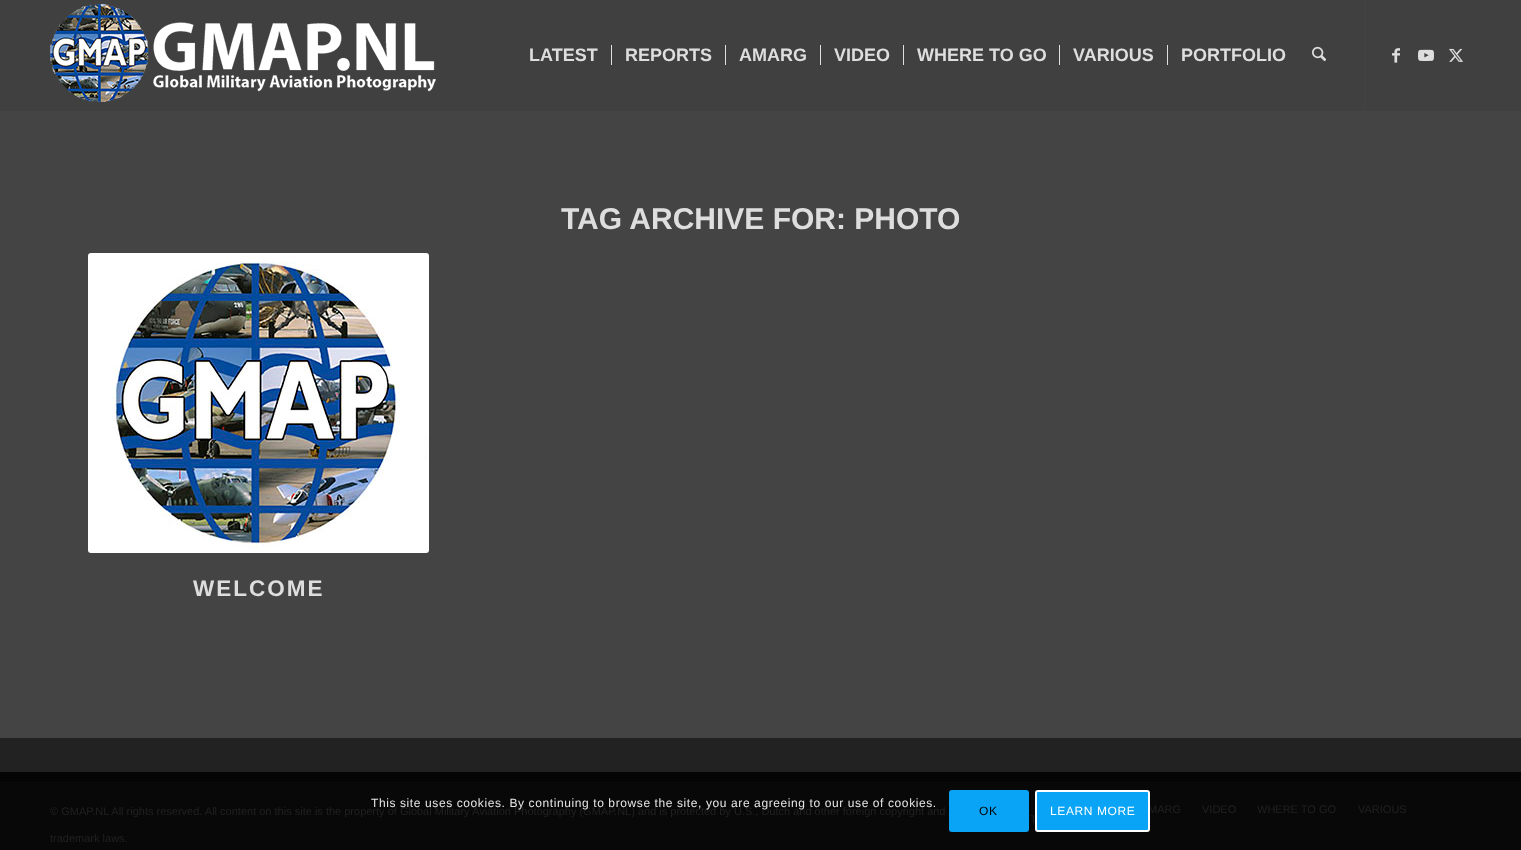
(async () => {
  const canvas = document.querySelector("canvas");
  canvas.width = 1521;
  canvas.height = 850;
  const ctx = canvas.getContext("2d");
  ctx.miterLimit = 4;
  ctx.fontKerning = "normal";
  async function loadImage(src) {
    const img = new Image();
    img.src = src;
    await img.decode();
    return img;
  }

  ctx.fillStyle = "#444444";
  ctx.fillRect(0, 0, 1521, 850);
  ctx.fillStyle = "#404040";
  ctx.fillRect(0, 0, 1521, 111);
  ctx.drawImage(await loadImage("img/1.png"), 50, 4, 386, 98);
  for (const [x, y, w, h, color] of [
    [1364, 0, 1, 111, "#444444"],
    [611, 45, 1, 20, "#dedede"],
    [725, 45, 1, 20, "#dedede"],
    [820, 45, 1, 20, "#dedede"],
    [903, 45, 1, 20, "#dedede"],
    [1059, 45, 1, 20, "#dedede"],
    [1167, 45, 1, 20, "#dedede"],
  ]) {
    ctx.fillStyle = color;
    ctx.fillRect(x, y, w, h);
  }
  ctx.drawImage(await loadImage("img/2.png"), 1312, 46, 14, 16);
  ctx.drawImage(await loadImage("img/3.png"), 1392, 48, 8, 15);
  ctx.drawImage(await loadImage("img/4.png"), 1418, 49, 16, 12);
  ctx.drawImage(await loadImage("img/5.png"), 1449, 48, 14, 14);
  ctx.drawImage(await loadImage("img/6.png"), 88, 253, 341, 300);
  for (const [x, y, w, h, color] of [
    [0, 738, 1521, 34, "#222222"],
    [0, 772, 1521, 10, "#050505"],
    [0, 783, 1521, 67, "#080808"],
    [0, 782, 1521, 1, "#0a0a0a"],
  ]) {
    ctx.fillStyle = color;
    ctx.fillRect(x, y, w, h);
  }
  ctx.fillStyle = "#0aa4f7";
  ctx.beginPath();
  ctx.roundRect(949, 790, 80, 42, 3);
  ctx.fill();
  ctx.font = "bold 18px Liberation Sans";
  ctx.fillStyle = "#dedede";
  for (const [text, x, y] of [
    ["LATEST", 529, 61],
    ["REPORTS", 625, 61],
    ["AMARG", 739, 61],
    ["VIDEO", 834, 61],
    ["WHERE TO GO", 917, 61],
    ["VARIOUS", 1073, 61],
    ["PORTFOLIO", 1181, 61],
  ]) {
    ctx.fillText(text, x, y);
  }
  ctx.font = "bold 30px Liberation Sans";
  ctx.fillText("TAG ARCHIVE FOR: PHOTO", 561, 229);
  ctx.letterSpacing = "2px";
  ctx.font = "bold 22.5px Liberation Sans";
  ctx.fillText("WELCOME", 193, 596);
  ctx.letterSpacing = "0px";
  ctx.font = "11px Liberation Sans";
  ctx.fillStyle = "#212121";
  for (const [text, x, y] of [
    ["© GMAP.NL All rights reserved. All content on this site is the property of Global Military Aviation Photography (GMAP.NL) and is protected by U.S., Dutch and other foreign copyright and", 50, 815],
    ["trademark laws.", 50, 842],
    ["MARG", 1148, 813],
    ["VIDEO", 1202, 813],
    ["WHERE TO GO", 1257, 813],
    ["VARIOUS", 1358, 813],
    ["T", 1030, 823],
  ]) {
    ctx.fillText(text, x, y);
  }
  ctx.letterSpacing = "0.6px";
  ctx.font = "12px Liberation Sans";
  ctx.fillStyle = "#e6e6e6";
  ctx.fillText("This site uses cookies. By continuing to browse the site, you are agreeing to our use of cookies.", 371, 807);
  ctx.fillStyle = "#000000";
  ctx.fillText("OK", 979, 815);
  ctx.fillStyle = "#0aa4f7";
  ctx.beginPath();
  ctx.roundRect(1036, 791, 113, 40, 2);
  ctx.fill();
  ctx.strokeStyle = "#ffffff";
  ctx.lineWidth = 2;
  ctx.stroke();
  ctx.fillStyle = "#ffffff";
  ctx.fillText("LEARN MORE", 1050, 815);
})();
